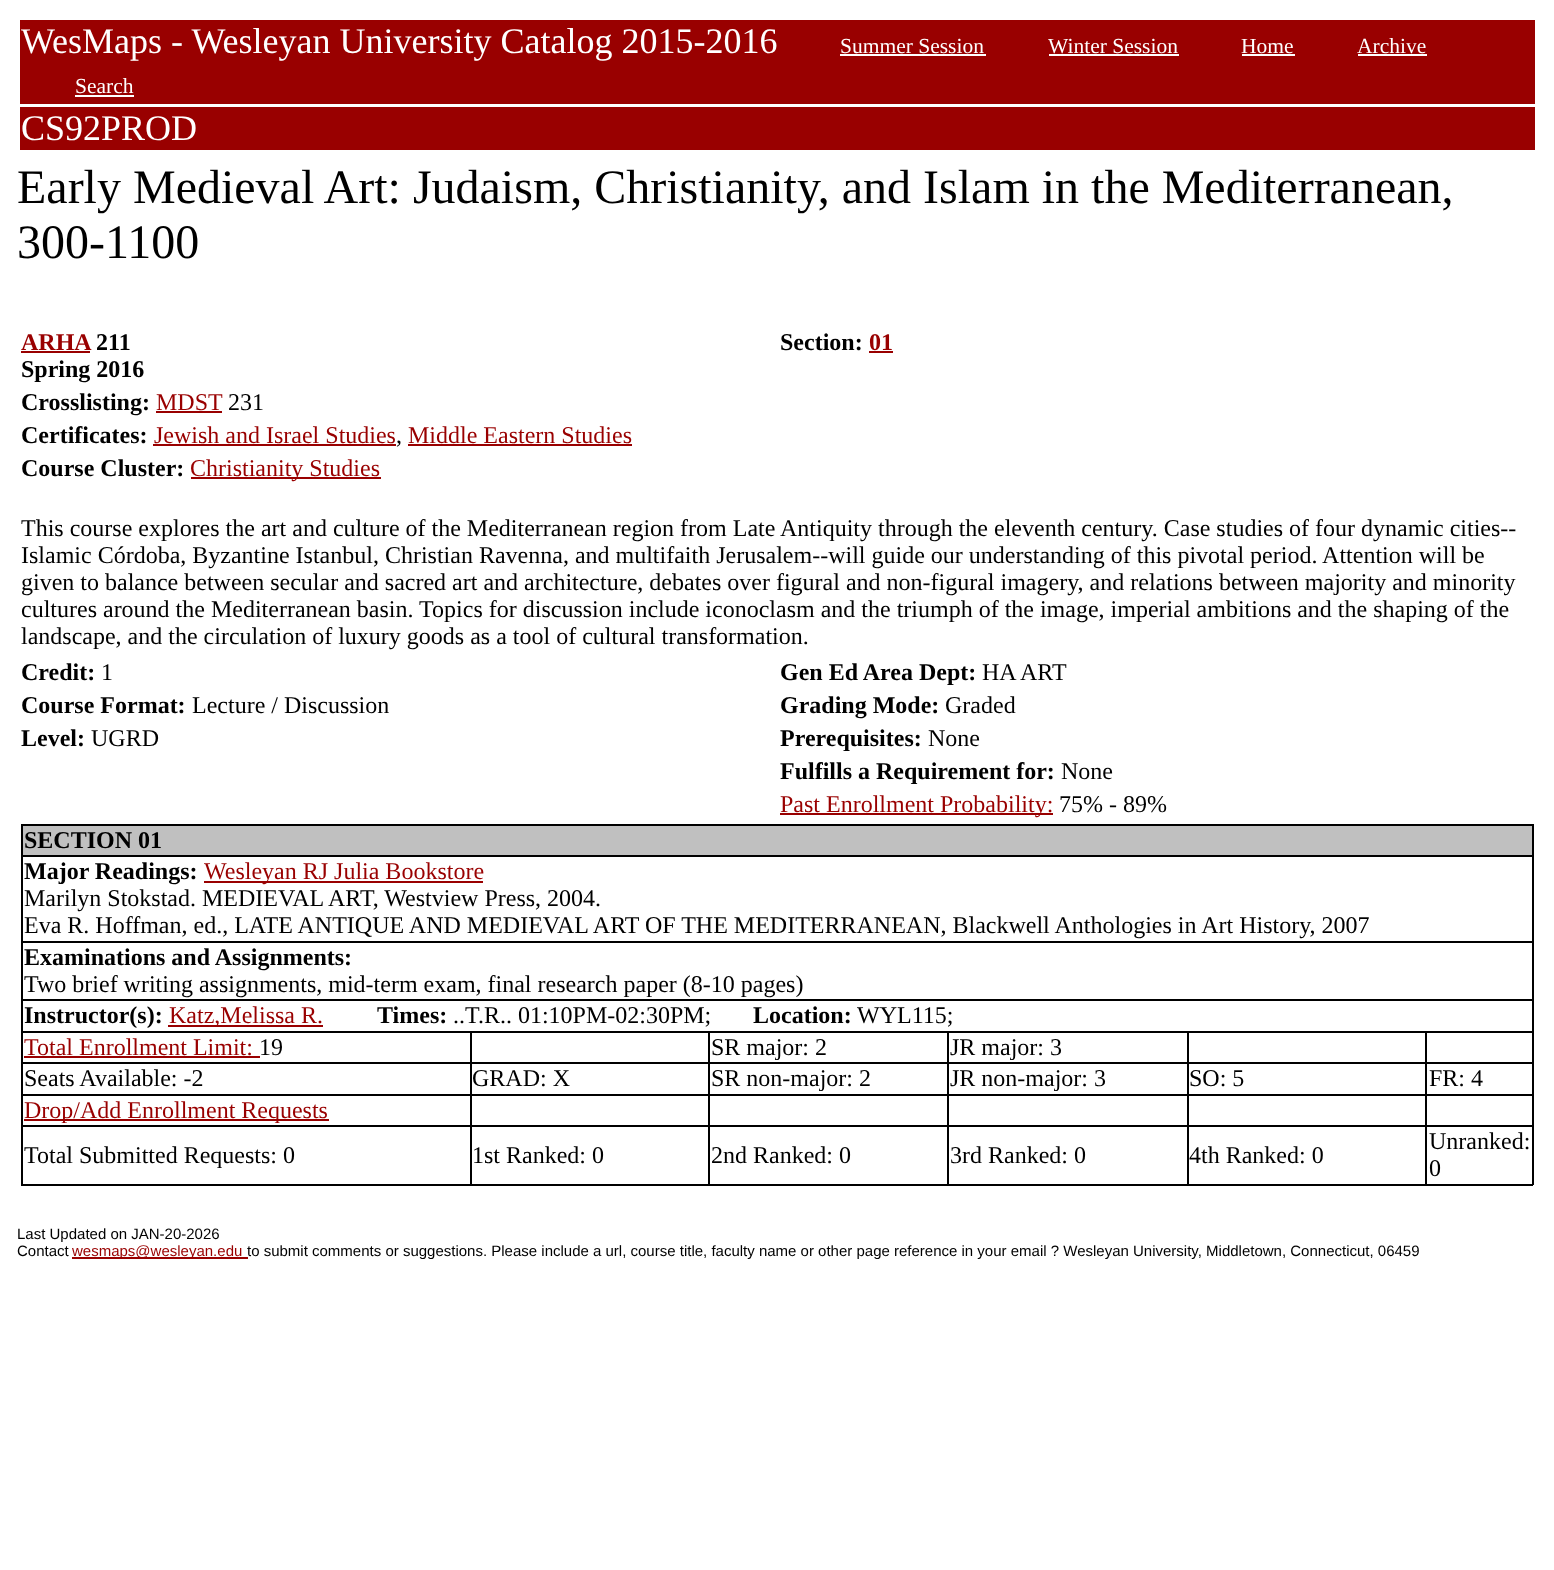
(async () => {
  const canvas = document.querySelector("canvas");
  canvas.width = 1554;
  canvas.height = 1570;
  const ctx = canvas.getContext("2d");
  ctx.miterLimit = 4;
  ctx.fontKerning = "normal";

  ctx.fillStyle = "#ffffff";
  ctx.fillRect(0, 0, 1554, 1570);
  for (const [x, y, w, h, color] of [
    [20, 20, 1515, 84, "#990000"],
    [840, 54, 146, 2, "#ffffff"],
    [1049, 54, 130, 2, "#ffffff"],
    [1242, 54, 53, 2, "#ffffff"],
    [1358, 54, 69, 2, "#ffffff"],
    [75, 95, 59, 2, "#ffffff"],
    [20, 107, 1515, 43, "#990000"],
    [21, 351, 69, 2, "#990000"],
    [869, 351, 24, 2, "#990000"],
    [156, 411, 66, 2, "#990000"],
    [153, 444, 243, 2, "#990000"],
    [408, 444, 224, 2, "#990000"],
    [191, 477, 190, 2, "#990000"],
    [780, 813, 273, 2, "#990000"],
    [21, 824, 1512, 2, "#000000"],
    [1532, 824, 2, 361, "#000000"],
    [21, 1184, 1512, 2, "#000000"],
    [21, 824, 2, 361, "#000000"],
    [23, 826, 1509, 29, "#c0c0c0"],
    [21, 855, 1512, 2, "#000000"],
    [204, 881, 279, 2, "#990000"],
    [21, 941, 1512, 2, "#000000"],
    [21, 999, 1512, 2, "#000000"],
    [168, 1025, 155, 2, "#990000"],
    [1425, 1031, 108, 2, "#000000"],
    [1425, 1062, 108, 2, "#000000"],
    [1425, 1094, 108, 2, "#000000"],
    [1425, 1125, 108, 2, "#000000"],
    [1425, 1125, 2, 60, "#000000"],
    [1187, 1125, 240, 2, "#000000"],
    [1425, 1094, 2, 33, "#000000"],
    [1187, 1094, 240, 2, "#000000"],
    [1425, 1062, 2, 33, "#000000"],
    [1187, 1062, 240, 2, "#000000"],
    [1425, 1031, 2, 33, "#000000"],
    [1187, 1031, 240, 2, "#000000"],
    [1187, 1125, 2, 60, "#000000"],
    [947, 1125, 241, 2, "#000000"],
    [1187, 1094, 2, 33, "#000000"],
    [947, 1094, 241, 2, "#000000"],
    [1187, 1062, 2, 33, "#000000"],
    [947, 1062, 241, 2, "#000000"],
    [1187, 1031, 2, 33, "#000000"],
    [947, 1031, 241, 2, "#000000"],
    [947, 1125, 2, 60, "#000000"],
    [708, 1125, 240, 2, "#000000"],
    [947, 1094, 2, 33, "#000000"],
    [708, 1094, 240, 2, "#000000"],
    [947, 1062, 2, 33, "#000000"],
    [708, 1062, 240, 2, "#000000"],
    [947, 1031, 2, 33, "#000000"],
    [708, 1031, 240, 2, "#000000"],
    [708, 1125, 2, 60, "#000000"],
    [470, 1125, 240, 2, "#000000"],
    [708, 1094, 2, 33, "#000000"],
    [470, 1094, 240, 2, "#000000"],
    [708, 1062, 2, 33, "#000000"],
    [470, 1062, 240, 2, "#000000"],
    [708, 1031, 2, 33, "#000000"],
    [470, 1031, 240, 2, "#000000"],
    [470, 1125, 2, 60, "#000000"],
    [21, 1125, 450, 2, "#000000"],
    [470, 1094, 2, 33, "#000000"],
    [21, 1094, 450, 2, "#000000"],
    [470, 1062, 2, 33, "#000000"],
    [21, 1062, 450, 2, "#000000"],
    [470, 1031, 2, 33, "#000000"],
    [21, 1031, 450, 2, "#000000"],
    [24, 1056, 236, 2, "#990000"],
    [24, 1119, 305, 2, "#990000"],
    [72, 1257, 176, 2, "#990000"],
  ]) {
    ctx.fillStyle = color;
    ctx.fillRect(x, y, w, h);
  }
  ctx.font = "36px Liberation Serif";
  ctx.fillStyle = "#ffffff";
  ctx.fillText("WesMaps - Wesleyan University Catalog 2015-2016", 21, 53);
  ctx.font = "21.5px Liberation Serif";
  for (const [text, x, y] of [
    ["Summer Session", 840, 53],
    ["Winter Session", 1048, 53],
    ["Home", 1241, 53],
    ["Archive", 1357, 53],
    ["Search", 75, 93],
  ]) {
    ctx.fillText(text, x, y);
  }
  ctx.font = "36px Liberation Serif";
  ctx.fillText("CS92PROD", 21, 140);
  ctx.font = "48px Liberation Serif";
  ctx.fillStyle = "#000000";
  ctx.fillText("Early Medieval Art: Judaism, Christianity, and Islam in the Mediterranean,", 17, 203);
  ctx.fillText("300-1100", 17, 258);
  ctx.font = "bold 24px Liberation Serif";
  ctx.fillStyle = "#990000";
  ctx.fillText("ARHA", 21, 350);
  ctx.fillStyle = "#000000";
  for (const [text, x, y] of [
    ["211", 96, 350],
    ["Spring 2016", 21, 377],
    ["Section:", 780, 350],
  ]) {
    ctx.fillText(text, x, y);
  }
  ctx.fillStyle = "#990000";
  ctx.fillText("01", 869, 350);
  ctx.fillStyle = "#000000";
  ctx.fillText("Crosslisting:", 21, 410);
  ctx.font = "24px Liberation Serif";
  ctx.fillStyle = "#990000";
  ctx.fillText("MDST", 156, 410);
  ctx.fillStyle = "#000000";
  ctx.fillText("231", 228, 410);
  ctx.font = "bold 24px Liberation Serif";
  ctx.fillText("Certificates:", 21, 443);
  ctx.font = "24px Liberation Serif";
  ctx.fillStyle = "#990000";
  ctx.fillText("Jewish and Israel Studies", 154, 443);
  ctx.fillStyle = "#000000";
  ctx.fillText(",", 396, 443);
  ctx.fillStyle = "#990000";
  ctx.fillText("Middle Eastern Studies", 408, 443);
  ctx.font = "bold 24px Liberation Serif";
  ctx.fillStyle = "#000000";
  ctx.fillText("Course Cluster:", 21, 476);
  ctx.font = "24px Liberation Serif";
  ctx.fillStyle = "#990000";
  ctx.fillText("Christianity Studies", 190, 476);
  ctx.fillStyle = "#000000";
  for (const [text, x, y] of [
    ["This course explores the art and culture of the Mediterranean region from Late Antiquity through the eleventh century. Case studies of four dynamic cities--", 21, 536],
    ["Islamic Córdoba, Byzantine Istanbul, Christian Ravenna, and multifaith Jerusalem--will guide our understanding of this pivotal period. Attention will be", 21, 563],
    ["given to balance between secular and sacred art and architecture, debates over figural and non-figural imagery, and relations between majority and minority", 21, 590],
    ["cultures around the Mediterranean basin. Topics for discussion include iconoclasm and the triumph of the image, imperial ambitions and the shaping of the", 21, 617],
    ["landscape, and the circulation of luxury goods as a tool of cultural transformation.", 21, 644],
  ]) {
    ctx.fillText(text, x, y);
  }
  ctx.font = "bold 24px Liberation Serif";
  ctx.fillText("Credit:", 21, 680);
  ctx.font = "24px Liberation Serif";
  ctx.fillText("1", 101, 680);
  ctx.font = "bold 24px Liberation Serif";
  ctx.fillText("Gen Ed Area Dept:", 780, 680);
  ctx.font = "24px Liberation Serif";
  ctx.fillText("HA ART", 982, 680);
  ctx.font = "bold 24px Liberation Serif";
  ctx.fillText("Course Format:", 21, 713);
  ctx.font = "24px Liberation Serif";
  ctx.fillText("Lecture / Discussion", 192, 713);
  ctx.font = "bold 24px Liberation Serif";
  ctx.fillText("Grading Mode:", 780, 713);
  ctx.font = "24px Liberation Serif";
  ctx.fillText("Graded", 945, 713);
  ctx.font = "bold 24px Liberation Serif";
  ctx.fillText("Level:", 21, 746);
  ctx.font = "24px Liberation Serif";
  ctx.fillText("UGRD", 91, 746);
  ctx.font = "bold 24px Liberation Serif";
  ctx.fillText("Prerequisites:", 780, 746);
  ctx.font = "24px Liberation Serif";
  ctx.fillText("None", 928, 746);
  ctx.font = "bold 24px Liberation Serif";
  ctx.fillText("Fulfills a Requirement for:", 780, 779);
  ctx.font = "24px Liberation Serif";
  ctx.fillText("None", 1061, 779);
  ctx.fillStyle = "#990000";
  ctx.fillText("Past Enrollment Probability:", 780, 812);
  ctx.fillStyle = "#000000";
  ctx.fillText("75% - 89%", 1059, 812);
  ctx.font = "bold 24px Liberation Serif";
  ctx.fillText("SECTION 01", 24, 848);
  ctx.fillText("Major Readings:", 24, 879);
  ctx.font = "24px Liberation Serif";
  ctx.fillStyle = "#990000";
  ctx.fillText("Wesleyan RJ Julia Bookstore", 204, 879);
  ctx.fillStyle = "#000000";
  ctx.fillText("Marilyn Stokstad. MEDIEVAL ART, Westview Press, 2004.", 24, 906);
  ctx.fillText("Eva R. Hoffman, ed., LATE ANTIQUE AND MEDIEVAL ART OF THE MEDITERRANEAN, Blackwell Anthologies in Art History, 2007", 24, 933);
  ctx.font = "bold 24px Liberation Serif";
  ctx.fillText("Examinations and Assignments:", 24, 965);
  ctx.font = "24px Liberation Serif";
  ctx.fillText("Two brief writing assignments, mid-term exam, final research paper (8-10 pages)", 24, 992);
  ctx.font = "bold 24px Liberation Serif";
  ctx.fillText("Instructor(s):", 24, 1023);
  ctx.font = "24px Liberation Serif";
  ctx.fillStyle = "#990000";
  ctx.fillText("Katz,Melissa R.", 169, 1023);
  ctx.font = "bold 24px Liberation Serif";
  ctx.fillStyle = "#000000";
  ctx.fillText("Times:", 377, 1023);
  ctx.font = "24px Liberation Serif";
  ctx.fillText("..T.R.. 01:10PM-02:30PM;", 453, 1023);
  ctx.font = "bold 24px Liberation Serif";
  ctx.fillText("Location:", 753, 1023);
  ctx.font = "24px Liberation Serif";
  ctx.fillText("WYL115;", 857, 1023);
  ctx.fillStyle = "#990000";
  ctx.fillText("Total Enrollment Limit:", 24, 1055);
  ctx.fillStyle = "#000000";
  for (const [text, x, y] of [
    ["19", 259, 1055],
    ["SR major: 2", 711, 1055],
    ["JR major: 3", 950, 1055],
    ["Seats Available: -2", 24, 1086],
    ["GRAD: X", 472, 1086],
    ["SR non-major: 2", 711, 1086],
    ["JR non-major: 3", 950, 1086],
    ["SO: 5", 1189, 1086],
    ["FR: 4", 1429, 1086],
  ]) {
    ctx.fillText(text, x, y);
  }
  ctx.fillStyle = "#990000";
  ctx.fillText("Drop/Add Enrollment Requests", 24, 1118);
  ctx.fillStyle = "#000000";
  for (const [text, x, y] of [
    ["Total Submitted Requests: 0", 24, 1163],
    ["1st Ranked: 0", 472, 1163],
    ["2nd Ranked: 0", 711, 1163],
    ["3rd Ranked: 0", 950, 1163],
    ["4th Ranked: 0", 1189, 1163],
    ["Unranked:", 1429, 1149],
    ["0", 1429, 1176],
  ]) {
    ctx.fillText(text, x, y);
  }
  ctx.font = "15px Liberation Sans";
  ctx.fillText("Last Updated on JAN-20-2026", 17, 1239);
  ctx.fillText("Contact", 17, 1256);
  ctx.fillStyle = "#990000";
  ctx.fillText("wesmaps@wesleyan.edu", 72, 1256);
  ctx.fillStyle = "#000000";
  ctx.fillText("to submit comments or suggestions. Please include a url, course title, faculty name or other page reference in your email ? Wesleyan University, Middletown, Connecticut, 06459", 247, 1256);
})();
